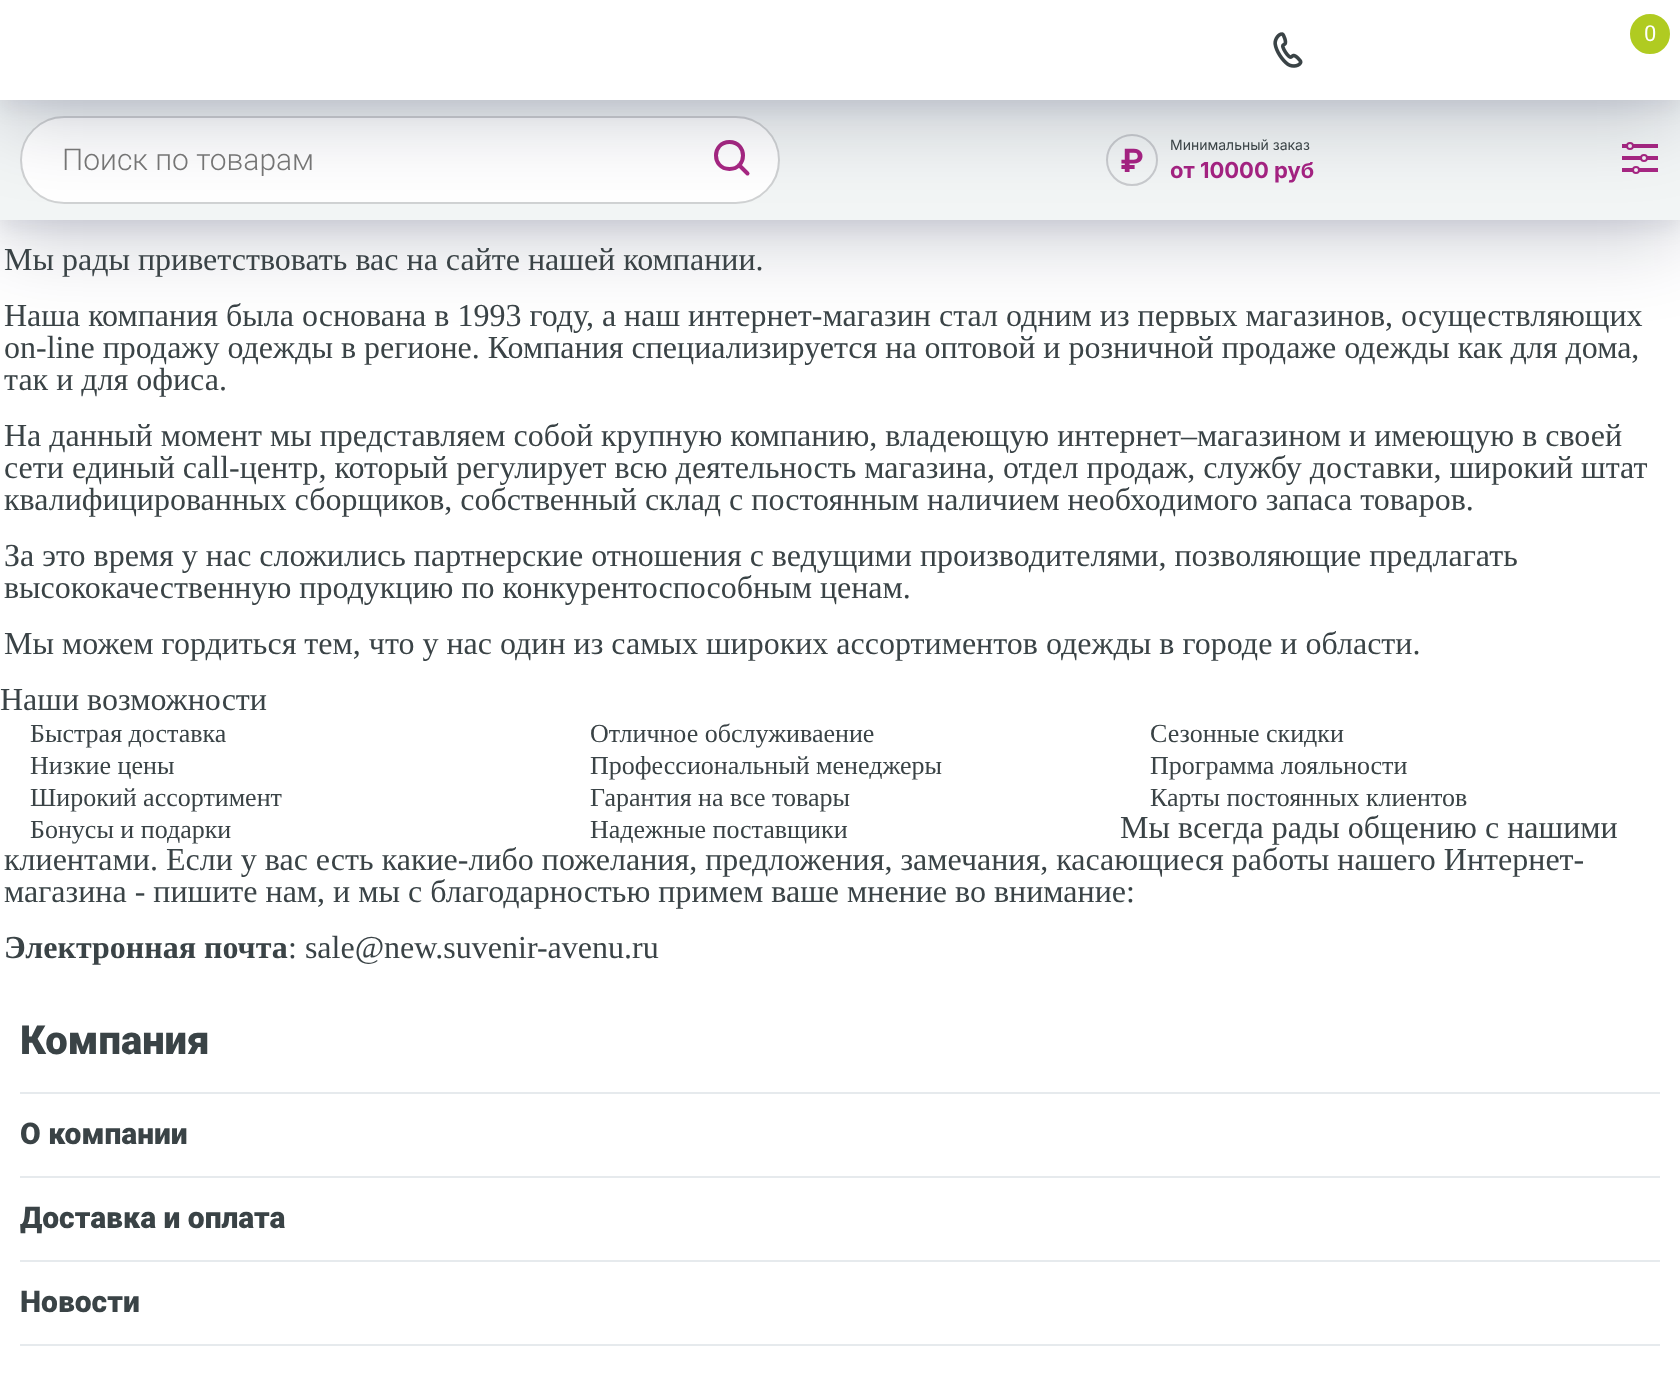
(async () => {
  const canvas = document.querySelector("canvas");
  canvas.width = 1680;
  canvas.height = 1374;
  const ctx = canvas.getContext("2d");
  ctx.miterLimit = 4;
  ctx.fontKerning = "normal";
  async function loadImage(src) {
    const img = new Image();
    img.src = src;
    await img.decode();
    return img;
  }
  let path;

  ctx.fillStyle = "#ffffff";
  ctx.fillRect(0, 0, 1680, 1374);
  ctx.fillStyle = "rgba(0, 12, 43, 0.2)";
  ctx.filter = "blur(40px)";
  ctx.beginPath();
  ctx.rect(0, 120, 1680, 120);
  ctx.fill();
  ctx.filter = "none";
  ctx.fillStyle = "rgba(0, 6, 55, 0.07)";
  ctx.filter = "blur(10px)";
  ctx.beginPath();
  ctx.rect(0, 108, 1680, 120);
  ctx.fill();
  ctx.filter = "none";
  ctx.fillStyle = "#f2f5f5";
  ctx.fillRect(0, 100, 1680, 120);
  ctx.fillStyle = "#ffffff";
  ctx.beginPath();
  ctx.roundRect(20, 116, 760, 88, 44);
  ctx.fill();
  ctx.beginPath();
  ctx.roundRect(21, 117, 758, 86, 43);
  ctx.strokeStyle = "rgba(58, 67, 70, 0.24)";
  ctx.lineWidth = 2;
  ctx.stroke();
  path = new Path2D("M729.5 169C747.5 169 747.5 142 729.5 142C711.5 142 711.5 169 729.5 169ZM739 165L747.5 173.5");
  ctx.strokeStyle = "#a82783";
  ctx.lineWidth = 4;
  ctx.lineCap = "round";
  ctx.lineJoin = "round";
  ctx.stroke(path);
  ctx.beginPath();
  ctx.arc(1132, 160, 25, 0, Math.PI * 2);
  ctx.strokeStyle = "#c9cbce";
  ctx.lineWidth = 2;
  ctx.stroke();
  ctx.drawImage(await loadImage("img/2.png"), 1622, 142, 36, 32);
  ctx.fillStyle = "rgba(0, 12, 43, 0.2)";
  ctx.filter = "blur(40px)";
  ctx.beginPath();
  ctx.rect(0, 20, 1680, 100);
  ctx.fill();
  ctx.filter = "none";
  ctx.fillStyle = "rgba(0, 6, 55, 0.07)";
  ctx.filter = "blur(10px)";
  ctx.beginPath();
  ctx.rect(0, 8, 1680, 100);
  ctx.fill();
  ctx.filter = "none";
  ctx.fillStyle = "#ffffff";
  ctx.fillRect(0, 0, 1680, 100);
  ctx.drawImage(await loadImage("img/1.png"), 1273, 32, 30, 36);
  ctx.fillStyle = "#b0cb21";
  ctx.beginPath();
  ctx.arc(1650, 34, 23, 0, Math.PI * 2);
  ctx.fill();
  ctx.strokeStyle = "#ffffff";
  ctx.lineWidth = 6;
  ctx.stroke();
  for (const [x, y, w, h, color] of [
    [20, 1092, 1640, 2, "#e6eaed"],
    [20, 1176, 1640, 2, "#e6eaed"],
    [20, 1260, 1640, 2, "#e6eaed"],
    [20, 1344, 1640, 2, "#e6eaed"],
  ]) {
    ctx.fillStyle = color;
    ctx.fillRect(x, y, w, h);
  }
  ctx.font = "22px Roboto";
  ctx.fillStyle = "#ffffff";
  ctx.fillText("0", 1644, 41);
  ctx.font = "300 30px Roboto";
  ctx.fillStyle = "#757575";
  ctx.fillText("Поиск по товарам", 62, 170);
  ctx.font = "bold 32px Inter";
  ctx.fillStyle = "#a22280";
  ctx.fillText("₽", 1120, 172);
  ctx.font = "14px Inter";
  ctx.fillStyle = "#3a4346";
  ctx.fillText("Минимальный заказ", 1170, 150);
  ctx.font = "bold 22px Inter";
  ctx.fillStyle = "#a22280";
  ctx.fillText("от 10000 руб", 1170, 178);
  ctx.font = "32px Liberation Serif";
  ctx.fillStyle = "#3a4346";
  for (const [text, x, y] of [
    ["Мы рады приветствовать вас на сайте нашей компании.", 4, 270],
    ["Наша компания была основана в 1993 году, а наш интернет-магазин стал одним из первых магазинов, осуществляющих", 4, 326],
    ["on-line продажу одежды в регионе. Компания специализируется на оптовой и розничной продаже одежды как для дома,", 4, 358],
    ["так и для офиса.", 4, 390],
    ["На данный момент мы представляем собой крупную компанию, владеющую интернет–магазином и имеющую в своей", 4, 446],
    ["сети единый call-центр, который регулирует всю деятельность магазина, отдел продаж, службу доставки, широкий штат", 4, 478],
    ["квалифицированных сборщиков, собственный склад c постоянным наличием необходимого запаса товаров.", 4, 510],
    ["За это время у нас сложились партнерские отношения с ведущими производителями, позволяющие предлагать", 4, 566],
    ["высококачественную продукцию по конкурентоспособным ценам.", 4, 598],
    ["Мы можем гордиться тем, что у нас один из самых широких ассортиментов одежды в городе и области.", 4, 654],
    ["Наши возможности", 0, 710],
  ]) {
    ctx.fillText(text, x, y);
  }
  ctx.font = "26px Liberation Serif";
  for (const [text, x, y] of [
    ["Быстрая доставка", 30, 742],
    ["Низкие цены", 30, 774],
    ["Широкий ассортимент", 30, 806],
    ["Бонусы и подарки", 30, 838],
    ["Отличное обслуживаение", 590, 742],
    ["Профессиональный менеджеры", 590, 774],
    ["Гарантия на все товары", 590, 806],
    ["Надежные поставщики", 590, 838],
    ["Сезонные скидки", 1150, 742],
    ["Программа лояльности", 1150, 774],
    ["Карты постоянных клиентов", 1150, 806],
  ]) {
    ctx.fillText(text, x, y);
  }
  ctx.font = "32px Liberation Serif";
  for (const [text, x, y] of [
    ["Мы всегда рады общению с нашими", 1120, 838],
    ["клиентами. Если у вас есть какие-либо пожелания, предложения, замечания, касающиеся работы нашего Интернет-", 4, 870],
    ["магазина - пишите нам, и мы с благодарностью примем ваше мнение во внимание:", 4, 902],
  ]) {
    ctx.fillText(text, x, y);
  }
  ctx.font = "bold 32px Liberation Serif";
  ctx.fillText("Электронная почта", 4, 958);
  ctx.font = "32px Liberation Serif";
  ctx.fillText(": sale@new.suvenir-avenu.ru", 288, 958);
  ctx.font = "900 40px Roboto";
  ctx.fillText("Компания", 20, 1054);
  ctx.font = "900 30px Roboto";
  for (const [text, x, y] of [
    ["О компании", 20, 1144],
    ["Доставка и оплата", 20, 1228],
    ["Новости", 20, 1312],
  ]) {
    ctx.fillText(text, x, y);
  }
})();
